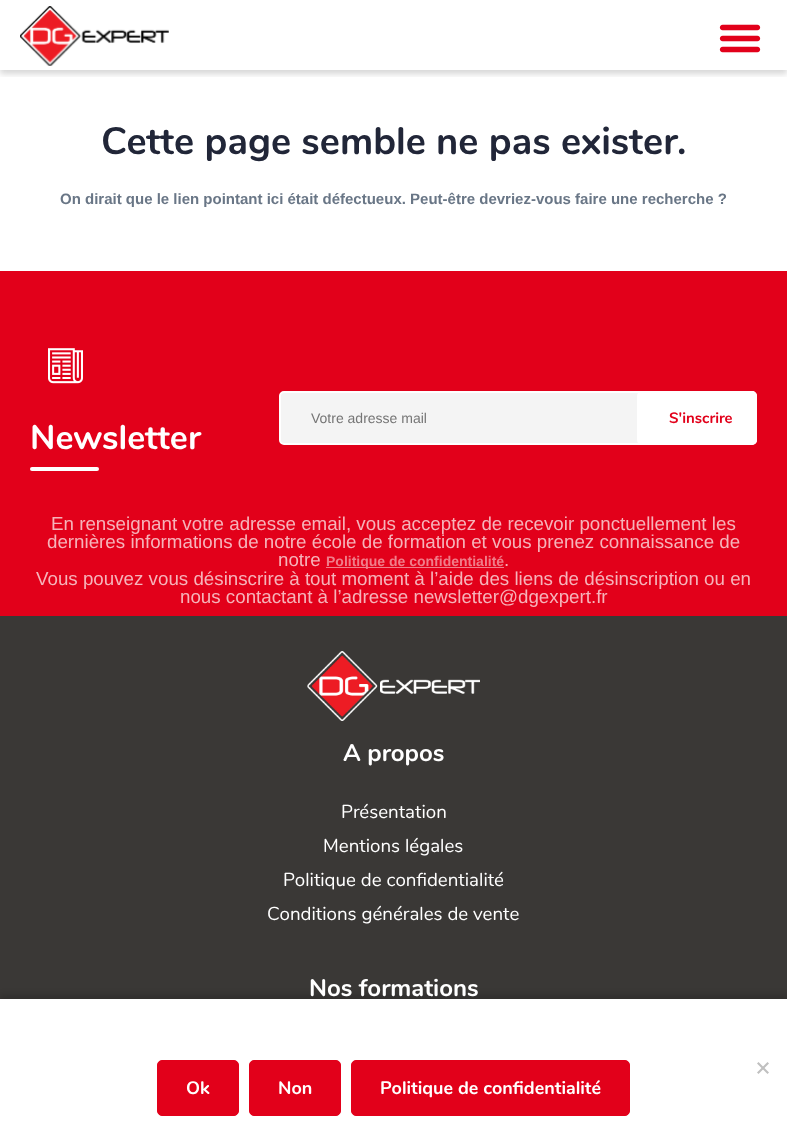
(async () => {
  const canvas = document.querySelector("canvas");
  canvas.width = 787;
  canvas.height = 1136;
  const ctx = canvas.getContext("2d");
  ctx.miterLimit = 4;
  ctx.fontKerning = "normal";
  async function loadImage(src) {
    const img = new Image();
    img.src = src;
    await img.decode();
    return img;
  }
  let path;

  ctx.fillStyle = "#ffffff";
  ctx.fillRect(0, 0, 787, 1136);
  ctx.save();
  ctx.beginPath();
  ctx.rect(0, 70, 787, 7);
  ctx.clip();
  ctx.fillStyle = "rgba(0, 0, 0, 0.16)";
  ctx.filter = "blur(3px)";
  ctx.beginPath();
  ctx.rect(0, 4, 787, 70);
  ctx.fill();
  ctx.filter = "none";
  ctx.restore();
  ctx.drawImage(await loadImage("img/1.png"), 20, 6, 149, 60);
  ctx.drawImage(await loadImage("img/2.png"), 719, 24, 42, 29);
  ctx.fillStyle = "#e2001a";
  ctx.fillRect(0, 271, 787, 345);
  ctx.fillStyle = "#f4f4f4";
  ctx.beginPath();
  ctx.roundRect(280, 392, 476, 52, 4);
  ctx.fill();
  ctx.strokeStyle = "#ffffff";
  ctx.lineWidth = 2;
  ctx.stroke();
  ctx.fillStyle = "#ffffff";
  ctx.beginPath();
  ctx.roundRect(638, 392, 118, 52, 4);
  ctx.fill();
  ctx.stroke();
  ctx.drawImage(await loadImage("img/3.png"), 48, 348, 35, 36);
  ctx.beginPath();
  ctx.roundRect(30, 467, 69, 4, 2);
  ctx.fill();
  ctx.fillStyle = "#f07d8a";
  ctx.fillRect(326, 567, 178, 1);
  ctx.fillStyle = "#3a3836";
  ctx.fillRect(0, 616, 787, 383);
  ctx.drawImage(await loadImage("img/4.png"), 307, 651, 173, 70);
  ctx.fillStyle = "rgba(0, 0, 0, 0.16)";
  ctx.filter = "blur(3px)";
  ctx.beginPath();
  ctx.rect(0, 995, 787, 137);
  ctx.fill();
  ctx.filter = "none";
  ctx.fillStyle = "#ffffff";
  ctx.fillRect(0, 999, 787, 137);
  ctx.fillStyle = "#c0c0c0";
  path = new Path2D("M767.5 1062L769 1063.5L758.5 1074L757 1072.5Z");
  ctx.fill(path);
  path = new Path2D("M757 1063.5L758.5 1062L769 1072.5L767.5 1074Z");
  ctx.fill(path);
  ctx.fillStyle = "#e2001a";
  ctx.beginPath();
  ctx.roundRect(157.5, 1060.5, 81, 55, 4.5);
  ctx.fill();
  ctx.strokeStyle = "#e2001a";
  ctx.lineWidth = 1;
  ctx.stroke();
  ctx.beginPath();
  ctx.roundRect(249.5, 1060.5, 91, 55, 4.5);
  ctx.fill();
  ctx.stroke();
  ctx.beginPath();
  ctx.roundRect(351.5, 1060.5, 278, 55, 4.5);
  ctx.fill();
  ctx.stroke();
  ctx.font = "bold 38px Nunito";
  ctx.fillStyle = "#212638";
  ctx.fillText("Cette page semble ne pas exister.", 101, 154);
  ctx.font = "bold 15px Liberation Sans";
  ctx.fillStyle = "#697686";
  ctx.fillText("On dirait que le lien pointant ici était défectueux. Peut-être devriez-vous faire une recherche ?", 60, 204);
  ctx.font = "14px Liberation Sans";
  ctx.fillStyle = "#757575";
  ctx.fillText("Votre adresse mail", 311, 423);
  ctx.font = "bold 15px Nunito";
  ctx.fillStyle = "#e2001a";
  ctx.fillText("S'inscrire", 669, 423);
  ctx.font = "bold 34px Nunito";
  ctx.fillStyle = "#ffffff";
  ctx.fillText("Newsletter", 30, 449);
  ctx.font = "18.75px Liberation Sans";
  ctx.fillStyle = "#f6b3ba";
  for (const [text, x, y] of [
    ["En renseignant votre adresse email, vous acceptez de recevoir ponctuellement les", 51, 530],
    ["dernières informations de notre école de formation et vous prenez connaissance de", 47, 548],
    ["notre", 278, 566],
  ]) {
    ctx.fillText(text, x, y);
  }
  ctx.font = "bold 14px Liberation Sans";
  ctx.fillStyle = "#f07d8a";
  ctx.fillText("Politique de confidentialité", 326, 566);
  ctx.font = "18.75px Liberation Sans";
  ctx.fillStyle = "#f6b3ba";
  for (const [text, x, y] of [
    [".", 504, 566],
    ["Vous pouvez vous désinscrire à tout moment à l’aide des liens de désinscription ou en", 36, 585],
    ["nous contactant à l’adresse newsletter@dgexpert.fr", 180, 603],
  ]) {
    ctx.fillText(text, x, y);
  }
  ctx.font = "bold 24px Nunito";
  ctx.fillStyle = "#ffffff";
  ctx.fillText("A propos", 343, 761);
  ctx.font = "18.75px Nunito";
  for (const [text, x, y] of [
    ["Présentation", 341, 818],
    ["Mentions légales", 323, 852],
    ["Politique de confidentialité", 283, 886],
    ["Conditions générales de vente", 267, 920],
  ]) {
    ctx.fillText(text, x, y);
  }
  ctx.font = "bold 24px Nunito";
  ctx.fillText("Nos formations", 309, 996);
  ctx.font = "bold 18px Nunito";
  for (const [text, x, y] of [
    ["Ok", 186, 1094],
    ["Non", 278, 1094],
    ["Politique de confidentialité", 380, 1094],
  ]) {
    ctx.fillText(text, x, y);
  }
})();
